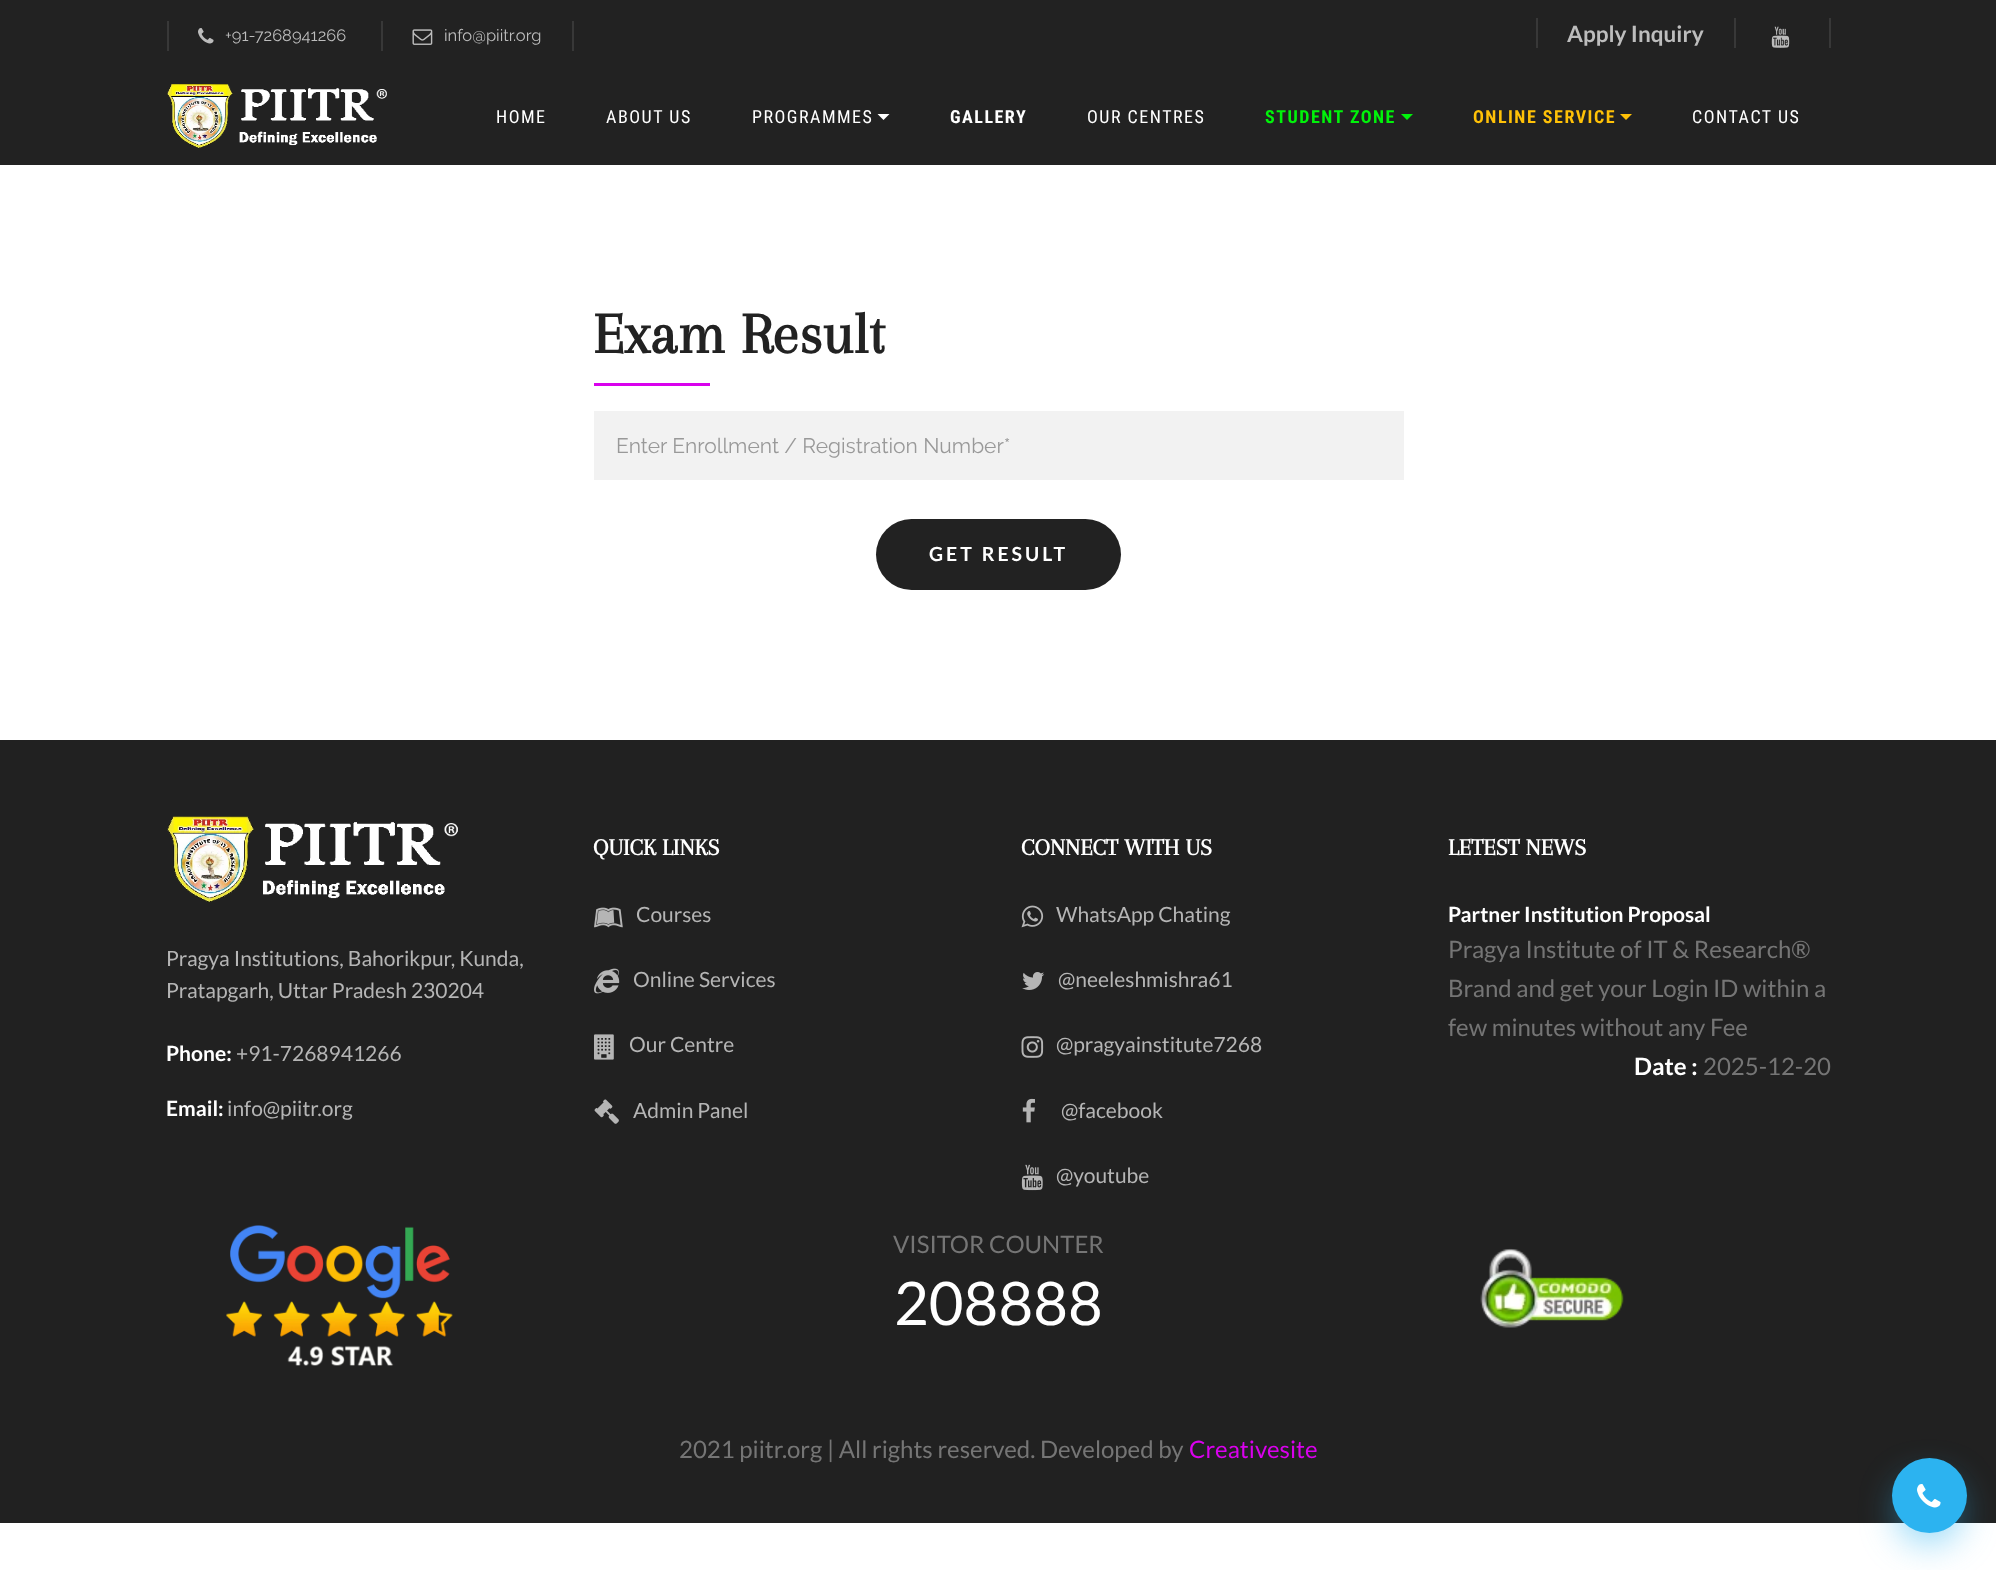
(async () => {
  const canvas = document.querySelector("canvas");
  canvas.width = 1996;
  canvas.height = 1570;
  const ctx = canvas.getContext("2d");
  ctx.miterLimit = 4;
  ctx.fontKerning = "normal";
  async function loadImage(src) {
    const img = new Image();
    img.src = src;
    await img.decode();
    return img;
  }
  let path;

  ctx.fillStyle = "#ffffff";
  ctx.fillRect(0, 0, 1996, 1570);
  ctx.fillStyle = "#222222";
  ctx.fillRect(0, 0, 1996, 165);
  ctx.fillStyle = "#383838";
  ctx.fillRect(167, 21, 2, 30);
  ctx.drawImage(await loadImage("img/1.png"), 198, 28, 16, 16);
  ctx.fillRect(572, 21, 2, 30);
  ctx.fillRect(381, 21, 2, 30);
  ctx.drawImage(await loadImage("img/2.png"), 412, 29, 21, 16);
  for (const [x, y, w, h, color] of [
    [1734, 18, 2, 30, "#383838"],
    [1536, 18, 2, 30, "#383838"],
    [1829, 18, 2, 30, "#383838"],
  ]) {
    ctx.fillStyle = color;
    ctx.fillRect(x, y, w, h);
  }
  ctx.drawImage(await loadImage("img/3.png"), 1771, 26, 19, 22);
  ctx.drawImage(await loadImage("img/4.png"), 167, 84, 220, 65);
  ctx.fillStyle = "#ffffff";
  path = new Path2D("M877.5 114H889.5L883.5 120Z");
  ctx.fill(path);
  ctx.fillStyle = "#00f30a";
  path = new Path2D("M1401 114H1413L1407 120Z");
  ctx.fill(path);
  ctx.fillStyle = "#ffc107";
  path = new Path2D("M1620 114H1632L1626 120Z");
  ctx.fill(path);
  ctx.fillStyle = "#d901ed";
  ctx.fillRect(594, 383, 116, 3);
  ctx.fillStyle = "#f2f2f2";
  ctx.fillRect(594, 411, 810, 69);
  ctx.fillStyle = "#222222";
  ctx.beginPath();
  ctx.roundRect(876, 519, 245, 71, 35.5);
  ctx.fill();
  ctx.fillStyle = "#212121";
  ctx.fillRect(0, 740, 1996, 783);
  ctx.drawImage(await loadImage("img/5.png"), 167, 816, 291, 87);
  ctx.drawImage(await loadImage("img/6.png"), 594, 907, 29, 21);
  ctx.drawImage(await loadImage("img/7.png"), 594, 968, 26, 26);
  ctx.drawImage(await loadImage("img/8.png"), 594, 1034, 20, 26);
  ctx.drawImage(await loadImage("img/9.png"), 594, 1099, 25, 25);
  ctx.drawImage(await loadImage("img/10.png"), 1021, 905, 23, 23);
  ctx.drawImage(await loadImage("img/11.png"), 1022, 972, 23, 18);
  ctx.drawImage(await loadImage("img/12.png"), 1021, 1036, 23, 22);
  ctx.drawImage(await loadImage("img/13.png"), 1022, 1098, 13, 25);
  ctx.drawImage(await loadImage("img/14.png"), 1021, 1164, 22, 27);
  ctx.drawImage(await loadImage("img/15.png"), 226, 1225, 227, 141);
  ctx.drawImage(await loadImage("img/16.png"), 1480, 1248, 144, 80);
  ctx.fillStyle = "rgba(44, 179, 240, 0.6)";
  ctx.filter = "blur(19px)";
  ctx.beginPath();
  ctx.roundRect(1899, 1481, 60, 60, 30);
  ctx.fill();
  ctx.filter = "none";
  ctx.fillStyle = "#2cb3f0";
  ctx.beginPath();
  ctx.arc(1929.5, 1495.5, 37.5, 0, Math.PI * 2);
  ctx.fill();
  ctx.drawImage(await loadImage("img/17.png"), 1917, 1484, 24, 24);
  ctx.font = "16.5px Raleway";
  ctx.fillStyle = "#bdbdbd";
  ctx.fillText("+91-7268941266", 225, 41);
  ctx.fillText("info@piitr.org", 444, 41);
  ctx.font = "bold 22.5px Lato";
  ctx.fillText("Apply Inquiry", 1567, 42);
  ctx.letterSpacing = "1.5px";
  ctx.font = "18px Roboto Condensed";
  ctx.fillStyle = "#ffffff";
  for (const [text, x, y] of [
    ["HOME", 496, 123],
    ["ABOUT US", 606, 123],
    ["PROGRAMMES", 752, 123],
  ]) {
    ctx.fillText(text, x, y);
  }
  ctx.font = "bold 18px Roboto Condensed";
  ctx.fillText("GALLERY", 950, 123);
  ctx.font = "18px Roboto Condensed";
  ctx.fillText("OUR CENTRES", 1087, 123);
  ctx.font = "bold 18px Roboto Condensed";
  ctx.fillStyle = "#00f30a";
  ctx.fillText("STUDENT ZONE", 1265, 123);
  ctx.fillStyle = "#ffc107";
  ctx.fillText("ONLINE SERVICE", 1473, 123);
  ctx.font = "18px Roboto Condensed";
  ctx.fillStyle = "#ffffff";
  ctx.fillText("CONTACT US", 1692, 123);
  ctx.letterSpacing = "0px";
  ctx.font = "bold 60px Arapey";
  ctx.fillStyle = "#222222";
  ctx.fillText("Exam Result", 593, 353);
  ctx.font = "21px Raleway";
  ctx.fillStyle = "#999999";
  ctx.fillText("Enter Enrollment / Registration Number*", 616, 453);
  ctx.letterSpacing = "3px";
  ctx.font = "bold 19.5px Lato";
  ctx.fillStyle = "#ffffff";
  ctx.fillText("GET RESULT", 929, 561);
  ctx.letterSpacing = "0px";
  ctx.font = "21px Lato";
  ctx.fillStyle = "#b5b5b5";
  ctx.fillText("Pragya Institutions, Bahorikpur, Kunda,", 166, 966);
  ctx.fillText("Pratapgarh, Uttar Pradesh 230204", 166, 998);
  ctx.font = "bold 21px Lato";
  ctx.fillStyle = "#ffffff";
  ctx.fillText("Phone:", 166, 1061);
  ctx.font = "21px Lato";
  ctx.fillStyle = "#b5b5b5";
  ctx.fillText("+91-7268941266", 236, 1061);
  ctx.font = "bold 21px Lato";
  ctx.fillStyle = "#ffffff";
  ctx.fillText("Email:", 166, 1116);
  ctx.font = "21px Lato";
  ctx.fillStyle = "#b5b5b5";
  ctx.fillText("info@piitr.org", 227, 1116);
  ctx.font = "bold 24px Arapey";
  ctx.fillStyle = "#ffffff";
  ctx.fillText("QUICK LINKS", 593, 855);
  ctx.font = "21px Lato";
  ctx.fillStyle = "#b5b5b5";
  for (const [text, x, y] of [
    ["Courses", 636, 922],
    ["Online Services", 633, 987],
    ["Our Centre", 629, 1052],
    ["Admin Panel", 633, 1118],
  ]) {
    ctx.fillText(text, x, y);
  }
  ctx.font = "bold 24px Arapey";
  ctx.fillStyle = "#ffffff";
  ctx.fillText("CONNECT WITH US", 1021, 855);
  ctx.font = "21px Lato";
  ctx.fillStyle = "#b5b5b5";
  for (const [text, x, y] of [
    ["WhatsApp Chating", 1056, 922],
    ["@neeleshmishra61", 1058, 987],
    ["@pragyainstitute7268", 1056, 1052],
    ["@facebook", 1061, 1118],
    ["@youtube", 1056, 1183],
  ]) {
    ctx.fillText(text, x, y);
  }
  ctx.font = "bold 24px Arapey";
  ctx.fillStyle = "#ffffff";
  ctx.fillText("LETEST NEWS", 1448, 855);
  ctx.font = "bold 21px Lato";
  ctx.fillText("Partner Institution Proposal", 1448, 922);
  ctx.font = "24px Lato";
  ctx.fillStyle = "#757575";
  for (const [text, x, y] of [
    ["Pragya Institute of IT & Research®", 1448, 958],
    ["Brand and get your Login ID within a", 1448, 997],
    ["few minutes without any Fee", 1448, 1036],
  ]) {
    ctx.fillText(text, x, y);
  }
  ctx.font = "bold 24px Lato";
  ctx.fillStyle = "#ffffff";
  ctx.fillText("Date :", 1634, 1075);
  ctx.font = "24px Lato";
  ctx.fillStyle = "#757575";
  ctx.fillText("2025-12-20", 1703, 1075);
  ctx.fillText("VISITOR COUNTER", 893, 1253);
  ctx.font = "60px Lato";
  ctx.fillStyle = "#ffffff";
  ctx.fillText("208888", 894, 1325);
  ctx.font = "24px Lato";
  ctx.fillStyle = "#757575";
  ctx.fillText("2021 piitr.org | All rights reserved. Developed by", 679, 1458);
  ctx.fillStyle = "#d901ed";
  ctx.fillText("Creativesite", 1189, 1458);
})();
